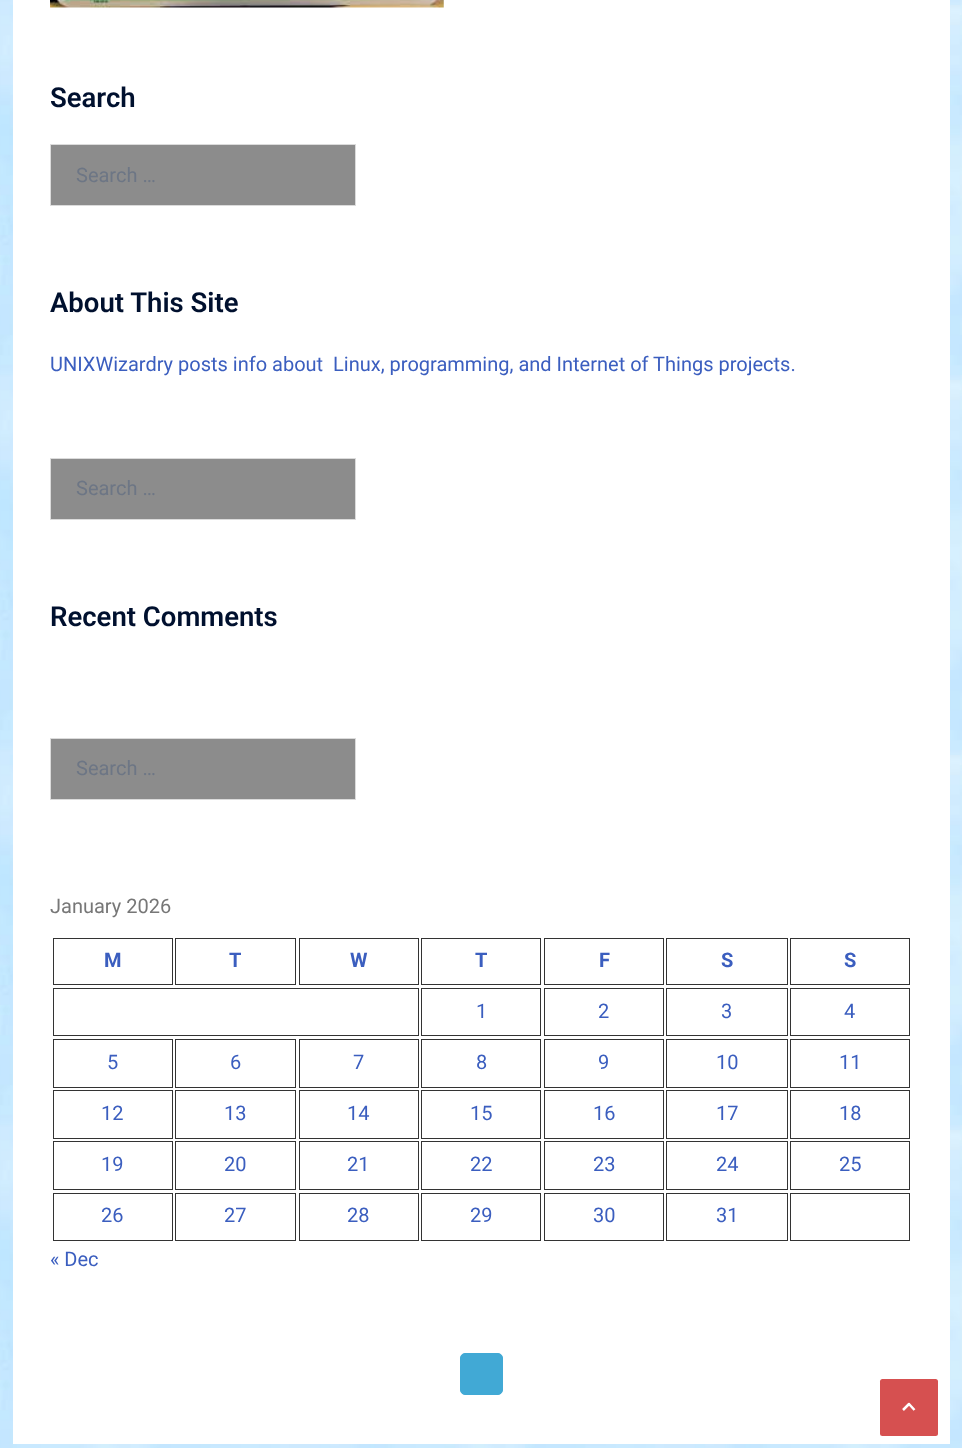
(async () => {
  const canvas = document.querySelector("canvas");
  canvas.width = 962;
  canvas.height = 1448;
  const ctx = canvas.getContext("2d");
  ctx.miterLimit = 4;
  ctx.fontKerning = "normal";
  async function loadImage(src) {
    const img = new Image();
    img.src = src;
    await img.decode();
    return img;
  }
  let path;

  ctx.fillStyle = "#ffffff";
  ctx.fillRect(0, 0, 962, 1448);
  ctx.drawImage(await loadImage("img/1.png"), 0, 0, 962, 1448);
  ctx.fillRect(13, 0, 937, 1444);
  ctx.drawImage(await loadImage("img/2.png"), 50, 0, 394, 8);
  ctx.fillStyle = "#8c8c8c";
  ctx.beginPath();
  ctx.rect(50.5, 144.5, 305, 61);
  ctx.fill();
  ctx.strokeStyle = "#dbdbdb";
  ctx.stroke();
  ctx.beginPath();
  ctx.rect(50.5, 458.5, 305, 61);
  ctx.fill();
  ctx.stroke();
  ctx.beginPath();
  ctx.rect(50.5, 738.5, 305, 61);
  ctx.fill();
  ctx.stroke();
  ctx.strokeStyle = "#333333";
  ctx.strokeRect(53.5, 938.5, 119, 46);
  ctx.strokeRect(175.5, 938.5, 120, 46);
  ctx.strokeRect(299.5, 938.5, 119, 46);
  ctx.strokeRect(421.5, 938.5, 119, 46);
  ctx.strokeRect(544.5, 938.5, 119, 46);
  ctx.strokeRect(666.5, 938.5, 121, 46);
  ctx.strokeRect(790.5, 938.5, 119, 46);
  ctx.strokeRect(53.5, 988.5, 365, 47);
  ctx.strokeRect(421.5, 988.5, 119, 47);
  ctx.strokeRect(544.5, 988.5, 119, 47);
  ctx.strokeRect(666.5, 988.5, 121, 47);
  ctx.strokeRect(790.5, 988.5, 119, 47);
  ctx.strokeRect(53.5, 1039.5, 119, 48);
  ctx.strokeRect(175.5, 1039.5, 120, 48);
  ctx.strokeRect(299.5, 1039.5, 119, 48);
  ctx.strokeRect(421.5, 1039.5, 119, 48);
  ctx.strokeRect(544.5, 1039.5, 119, 48);
  ctx.strokeRect(666.5, 1039.5, 121, 48);
  ctx.strokeRect(790.5, 1039.5, 119, 48);
  ctx.strokeRect(53.5, 1090.5, 119, 48);
  ctx.strokeRect(175.5, 1090.5, 120, 48);
  ctx.strokeRect(299.5, 1090.5, 119, 48);
  ctx.strokeRect(421.5, 1090.5, 119, 48);
  ctx.strokeRect(544.5, 1090.5, 119, 48);
  ctx.strokeRect(666.5, 1090.5, 121, 48);
  ctx.strokeRect(790.5, 1090.5, 119, 48);
  ctx.strokeRect(53.5, 1141.5, 119, 48);
  ctx.strokeRect(175.5, 1141.5, 120, 48);
  ctx.strokeRect(299.5, 1141.5, 119, 48);
  ctx.strokeRect(421.5, 1141.5, 119, 48);
  ctx.strokeRect(544.5, 1141.5, 119, 48);
  ctx.strokeRect(666.5, 1141.5, 121, 48);
  ctx.strokeRect(790.5, 1141.5, 119, 48);
  ctx.strokeRect(53.5, 1193.5, 119, 47);
  ctx.strokeRect(175.5, 1193.5, 120, 47);
  ctx.strokeRect(299.5, 1193.5, 119, 47);
  ctx.strokeRect(421.5, 1193.5, 119, 47);
  ctx.strokeRect(544.5, 1193.5, 119, 47);
  ctx.strokeRect(666.5, 1193.5, 121, 47);
  ctx.strokeRect(790.5, 1193.5, 119, 47);
  ctx.fillStyle = "#41a9d5";
  ctx.beginPath();
  ctx.roundRect(460.5, 1353.5, 42, 41, 4.5);
  ctx.fill();
  ctx.strokeStyle = "#41a9d5";
  ctx.stroke();
  ctx.fillStyle = "#d65050";
  ctx.beginPath();
  ctx.roundRect(880, 1379, 58, 57, 2.5);
  ctx.fill();
  path = new Path2D("M903 1410L909 1404L914.5 1410");
  ctx.strokeStyle = "#ffffff";
  ctx.lineWidth = 2.5;
  ctx.lineJoin = "round";
  ctx.stroke(path);
  ctx.font = "600 27.5px Roboto";
  ctx.fillStyle = "#00102e";
  ctx.fillText("Search", 50, 107);
  ctx.font = "20px Roboto";
  ctx.fillStyle = "#6d7685";
  ctx.fillText("Search …", 76, 182);
  ctx.font = "600 27.5px Roboto";
  ctx.fillStyle = "#00102e";
  ctx.fillText("About This Site", 50, 312);
  ctx.font = "20px Roboto";
  ctx.fillStyle = "#3b5ebf";
  ctx.fillText("UNIXWizardry posts info about  Linux, programming, and Internet of Things projects.", 50, 371);
  ctx.fillStyle = "#6d7685";
  ctx.fillText("Search …", 76, 495);
  ctx.font = "600 27.5px Roboto";
  ctx.fillStyle = "#00102e";
  ctx.fillText("Recent Comments", 50, 626);
  ctx.font = "20px Roboto";
  ctx.fillStyle = "#6d7685";
  ctx.fillText("Search …", 76, 775);
  ctx.fillStyle = "#777777";
  ctx.fillText("January 2026", 50, 913);
  ctx.font = "bold 20px Roboto";
  ctx.fillStyle = "#3b5ebf";
  for (const [text, x, y] of [
    ["M", 104, 967],
    ["T", 229, 967],
    ["W", 350, 967],
    ["T", 475, 967],
    ["F", 599, 967],
    ["S", 721, 967],
    ["S", 844, 967],
  ]) {
    ctx.fillText(text, x, y);
  }
  ctx.font = "20px Roboto";
  for (const [text, x, y] of [
    ["1", 476, 1018],
    ["2", 598, 1018],
    ["3", 721, 1018],
    ["4", 844, 1018],
    ["5", 107, 1069],
    ["6", 230, 1069],
    ["7", 353, 1069],
    ["8", 476, 1069],
    ["9", 598, 1069],
    ["10", 716, 1069],
    ["11", 839, 1069],
    ["12", 101, 1120],
    ["13", 224, 1120],
    ["14", 347, 1120],
    ["15", 470, 1120],
    ["16", 593, 1120],
    ["17", 716, 1120],
    ["18", 839, 1120],
    ["19", 101, 1171],
    ["20", 224, 1171],
    ["21", 347, 1171],
    ["22", 470, 1171],
    ["23", 593, 1171],
    ["24", 716, 1171],
    ["25", 839, 1171],
    ["26", 101, 1222],
    ["27", 224, 1222],
    ["28", 347, 1222],
    ["29", 470, 1222],
    ["30", 593, 1222],
    ["31", 716, 1222],
    ["« Dec", 50, 1266],
  ]) {
    ctx.fillText(text, x, y);
  }
})();
